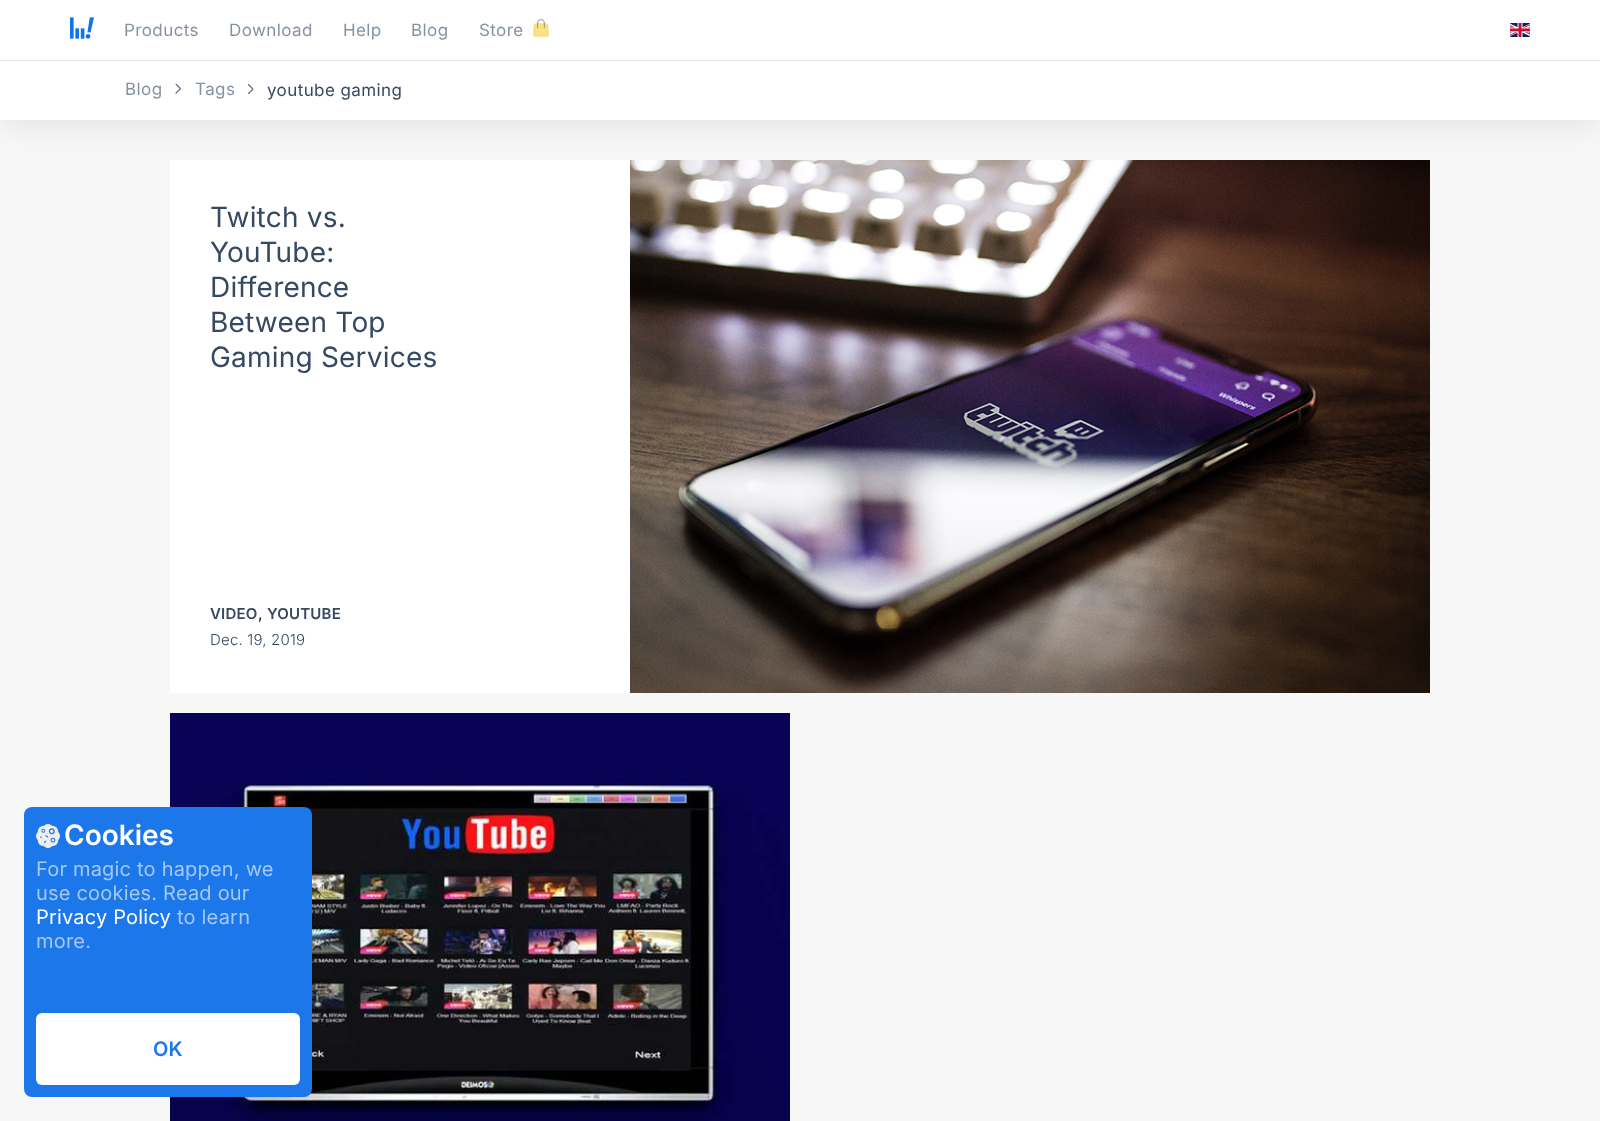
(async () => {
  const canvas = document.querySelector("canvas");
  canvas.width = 1600;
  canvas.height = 1121;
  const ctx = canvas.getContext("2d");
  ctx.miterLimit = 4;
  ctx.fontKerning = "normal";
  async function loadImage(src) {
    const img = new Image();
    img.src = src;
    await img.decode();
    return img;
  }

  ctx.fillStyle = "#f7f7f7";
  ctx.fillRect(0, 0, 1600, 1121);
  ctx.fillStyle = "#ffffff";
  ctx.fillRect(170, 160, 460, 533);
  ctx.drawImage(await loadImage("img/6.png"), 630, 160, 800, 533);
  ctx.fillStyle = "rgba(0, 0, 0, 0.07)";
  ctx.filter = "blur(14px)";
  ctx.beginPath();
  ctx.rect(0, 67, 1600, 60);
  ctx.fill();
  ctx.filter = "none";
  ctx.fillStyle = "#ffffff";
  ctx.fillRect(0, 0, 1600, 60);
  ctx.drawImage(await loadImage("img/1.png"), 70, 17, 24, 22);
  ctx.drawImage(await loadImage("img/2.png"), 533, 19, 16, 18);
  ctx.drawImage(await loadImage("img/3.png"), 1510, 23, 20, 14);
  ctx.fillRect(0, 61, 1600, 59);
  ctx.fillStyle = "#e8e8e8";
  ctx.fillRect(0, 60, 1600, 1);
  ctx.drawImage(await loadImage("img/4.png"), 175, 83, 6, 11);
  ctx.drawImage(await loadImage("img/5.png"), 248, 84, 6, 11);
  ctx.drawImage(await loadImage("img/7.png"), 170, 713, 620, 408);
  ctx.fillStyle = "#1c77eb";
  ctx.beginPath();
  ctx.roundRect(24, 807, 288, 290, 8);
  ctx.fill();
  ctx.drawImage(await loadImage("img/8.png"), 36, 824, 24, 24);
  ctx.fillStyle = "#ffffff";
  ctx.beginPath();
  ctx.roundRect(36, 1013, 264, 72, 6);
  ctx.fill();
  ctx.letterSpacing = "0.4px";
  ctx.font = "17px Inter";
  ctx.fillStyle = "#8692a1";
  for (const [text, x, y] of [
    ["Products", 124, 36],
    ["Download", 229, 36],
    ["Help", 343, 36],
    ["Blog", 411, 36],
    ["Store", 479, 36],
    ["Blog", 125, 95],
    ["Tags", 195, 95],
  ]) {
    ctx.fillText(text, x, y);
  }
  ctx.fillStyle = "#364962";
  ctx.fillText("youtube gaming", 267, 96);
  ctx.letterSpacing = "0.2px";
  ctx.font = "28px Inter";
  for (const [text, x, y] of [
    ["Twitch vs.", 210, 227],
    ["YouTube:", 210, 262],
    ["Difference", 210, 297],
    ["Between Top", 210, 332],
    ["Gaming Services", 210, 367],
  ]) {
    ctx.fillText(text, x, y);
  }
  ctx.font = "600 15px Inter";
  ctx.fillText("VIDEO", 210, 619);
  ctx.letterSpacing = "0px";
  ctx.font = "16px Inter";
  ctx.fillStyle = "#000000";
  ctx.fillText(",", 258, 619);
  ctx.letterSpacing = "0.2px";
  ctx.font = "600 15px Inter";
  ctx.fillStyle = "#364962";
  ctx.fillText("YOUTUBE", 267, 619);
  ctx.font = "300 15px Inter";
  ctx.fillText("Dec. 19, 2019", 210, 645);
  ctx.letterSpacing = "0px";
  ctx.font = "600 28px Inter";
  ctx.fillStyle = "#ffffff";
  ctx.fillText("Cookies", 64, 845);
  ctx.letterSpacing = "0.2px";
  ctx.font = "20px Inter";
  ctx.fillStyle = "#a4c9f7";
  ctx.fillText("For magic to happen, we", 36, 876);
  ctx.fillText("use cookies. Read our", 36, 900);
  ctx.fillStyle = "#ffffff";
  ctx.fillText("Privacy Policy", 36, 924);
  ctx.fillStyle = "#a4c9f7";
  ctx.fillText("to learn", 177, 924);
  ctx.fillText("more.", 36, 948);
  ctx.font = "600 20px Inter";
  ctx.fillStyle = "#1c77eb";
  ctx.fillText("OK", 153, 1056);
})();
